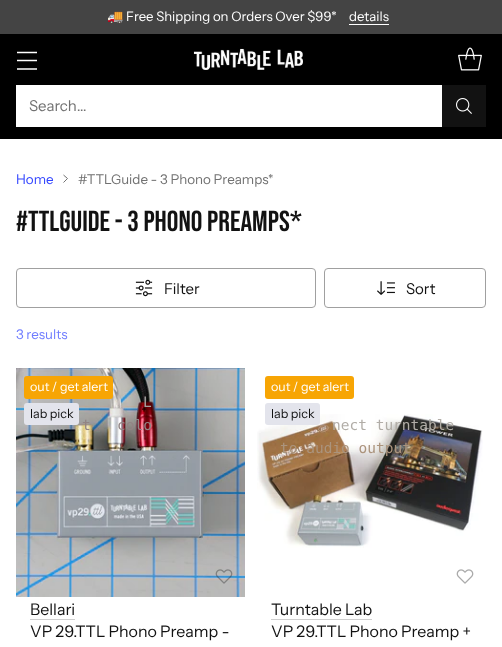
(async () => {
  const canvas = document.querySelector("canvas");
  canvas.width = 502;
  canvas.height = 647;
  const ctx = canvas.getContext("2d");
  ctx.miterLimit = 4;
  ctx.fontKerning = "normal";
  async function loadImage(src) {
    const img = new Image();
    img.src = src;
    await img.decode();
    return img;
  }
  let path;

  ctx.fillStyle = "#ffffff";
  ctx.fillRect(0, 0, 502, 647);
  for (const [x, y, w, h, color] of [
    [0, 0, 502, 34, "#444444"],
    [349, 24, 40, 1, "#ffffff"],
    [0, 34, 502, 105, "#000000"],
  ]) {
    ctx.fillStyle = color;
    ctx.fillRect(x, y, w, h);
  }
  path = new Path2D("M17 60.5H37M17 52.5H37M17 69H37");
  ctx.strokeStyle = "#ffffff";
  ctx.lineWidth = 1.4;
  ctx.stroke(path);
  ctx.drawImage(await loadImage("img/1.png"), 193, 48, 110, 22);
  ctx.drawImage(await loadImage("img/2.png"), 458, 47, 24, 24);
  ctx.fillStyle = "#ffffff";
  ctx.fillRect(16, 85, 426, 42);
  ctx.fillStyle = "#121212";
  ctx.fillRect(442, 85, 44, 42);
  ctx.drawImage(await loadImage("img/3.png"), 456, 98, 16, 16);
  path = new Path2D("M63.5 182.5L67.5 178.5L63.5 175");
  ctx.strokeStyle = "#717171";
  ctx.lineWidth = 1;
  ctx.stroke(path);
  ctx.beginPath();
  ctx.roundRect(16.5, 268.5, 299, 39, 3.5);
  ctx.strokeStyle = "#a0a0a0";
  ctx.stroke();
  ctx.drawImage(await loadImage("img/4.png"), 135, 279, 18, 18);
  ctx.beginPath();
  ctx.roundRect(324.5, 268.5, 161, 39, 3.5);
  ctx.stroke();
  ctx.drawImage(await loadImage("img/5.png"), 377, 281, 18, 14);
  ctx.drawImage(await loadImage("img/6.png"), 16, 368, 229, 229);
  ctx.fillStyle = "#f7a504";
  ctx.beginPath();
  ctx.roundRect(24, 376, 89, 23, 3);
  ctx.fill();
  ctx.fillStyle = "#e3e4ec";
  ctx.beginPath();
  ctx.roundRect(24, 403, 55, 22, 3);
  ctx.fill();
  ctx.drawImage(await loadImage("img/7.png"), 215, 569, 18, 15);
  ctx.fillStyle = "#cfcfcf";
  ctx.fillRect(30, 619, 45, 1);
  ctx.fillStyle = "#f7a504";
  ctx.beginPath();
  ctx.roundRect(265, 376, 89, 23, 3);
  ctx.fill();
  ctx.drawImage(await loadImage("img/8.png"), 257, 414, 226, 134);
  ctx.fillStyle = "#e3e4ec";
  ctx.beginPath();
  ctx.roundRect(265, 403, 55, 22, 3);
  ctx.fill();
  ctx.drawImage(await loadImage("img/9.png"), 456, 569, 18, 15);
  ctx.fillStyle = "#cfcfcf";
  ctx.fillRect(271, 619, 101, 1);
  ctx.font = "13.2px Noto Color Emoji";
  ctx.fillStyle = "#ffffff";
  ctx.fillText("🚚", 107, 21);
  ctx.font = "13.2px Instrument Sans";
  ctx.fillText("Free Shipping on Orders Over $99*", 126, 21);
  ctx.fillText("details", 349, 21);
  ctx.font = "15px Instrument Sans";
  ctx.fillStyle = "#717171";
  ctx.fillText("Search…", 29, 111);
  ctx.font = "13.4px Instrument Sans";
  ctx.fillStyle = "#3245ff";
  ctx.fillText("Home", 16, 184);
  ctx.fillStyle = "#717171";
  ctx.fillText("#TTLGuide - 3 Phono Preamps*", 78, 184);
  ctx.font = "29px Bebas Neue";
  ctx.fillStyle = "#121212";
  ctx.fillText("#TTLGuide - 3 Phono Preamps*", 16, 231);
  ctx.font = "15px Instrument Sans";
  ctx.fillText("Filter", 164, 294);
  ctx.fillText("Sort", 406, 294);
  ctx.font = "13.4px Instrument Sans";
  ctx.fillStyle = "#707dff";
  ctx.fillText("3 results", 16, 339);
  ctx.font = "12.5px Instrument Sans";
  ctx.fillStyle = "#ffffff";
  ctx.fillText("out / get alert", 30, 391);
  ctx.fillStyle = "#121212";
  ctx.fillText("lab pick", 30, 418);
  ctx.font = "14.5px DejaVu Sans Mono";
  ctx.fillStyle = "#a4a19f";
  ctx.fillText("L", 143, 407);
  ctx.fillStyle = "#928484";
  ctx.fillText("t", 82, 430);
  ctx.fillText("colo", 117, 430);
  ctx.font = "16px Instrument Sans";
  ctx.fillStyle = "#121212";
  ctx.fillText("Bellari", 30, 615);
  ctx.fillText("VP 29.TTL Phono Preamp -", 30, 637);
  ctx.font = "12.5px Instrument Sans";
  ctx.fillStyle = "#ffffff";
  ctx.fillText("out / get alert", 271, 391);
  ctx.fillStyle = "#121212";
  ctx.fillText("lab pick", 271, 418);
  ctx.font = "14.5px DejaVu Sans Mono";
  ctx.fillStyle = "#b1ada7";
  ctx.fillText("nect turntable", 332, 430);
  ctx.fillStyle = "#ab947d";
  ctx.fillText("to audio output", 280, 453);
  ctx.font = "16px Instrument Sans";
  ctx.fillStyle = "#121212";
  ctx.fillText("Turntable Lab", 271, 615);
  ctx.fillText("VP 29.TTL Phono Preamp +", 271, 637);
})();
